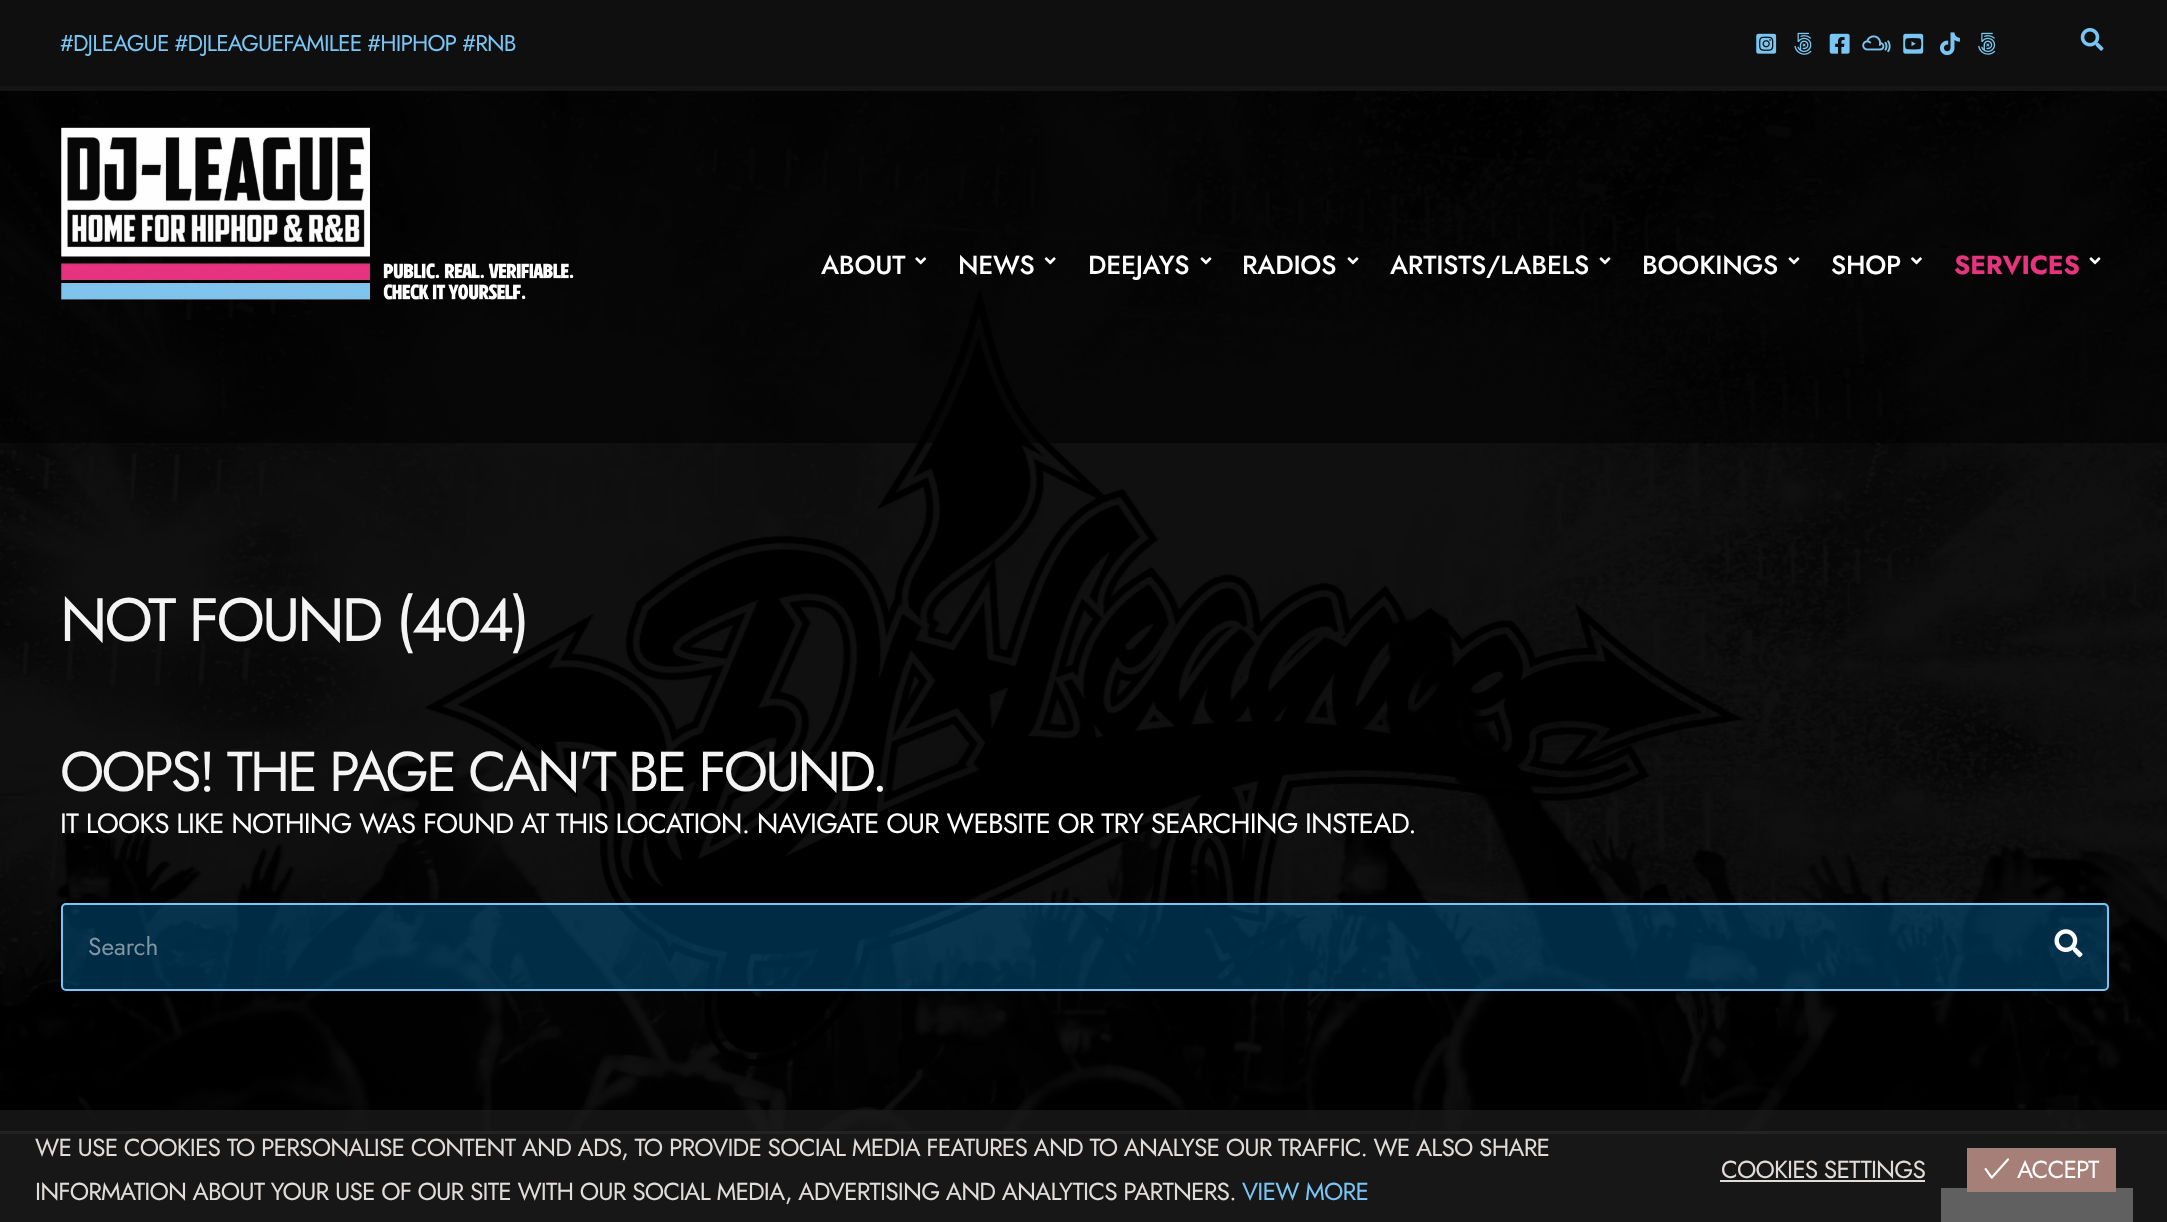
(async () => {
  const canvas = document.querySelector("canvas");
  canvas.width = 2167;
  canvas.height = 1222;
  const ctx = canvas.getContext("2d");
  ctx.miterLimit = 4;
  ctx.fontKerning = "normal";
  async function loadImage(src) {
    const img = new Image();
    img.src = src;
    await img.decode();
    return img;
  }

  ctx.fillStyle = "#ffffff";
  ctx.fillRect(0, 0, 2167, 1222);
  ctx.drawImage(await loadImage("img/1.png"), 0, 91, 2167, 1040);
  for (const [x, y, w, h, color] of [
    [0, 0, 2167, 86, "#202020"],
    [0, 86, 2167, 5, "#2a2a2a"],
    [0, 0, 2167, 443, "rgba(0, 0, 0, 0.51)"],
  ]) {
    ctx.fillStyle = color;
    ctx.fillRect(x, y, w, h);
  }
  ctx.drawImage(await loadImage("img/2.png"), 1756, 33, 21, 21);
  ctx.drawImage(await loadImage("img/3.png"), 1794, 32, 18, 23);
  ctx.drawImage(await loadImage("img/4.png"), 1829, 33, 21, 21);
  ctx.drawImage(await loadImage("img/5.png"), 1862, 35, 29, 18);
  ctx.drawImage(await loadImage("img/6.png"), 1903, 33, 21, 21);
  ctx.drawImage(await loadImage("img/7.png"), 1940, 32, 20, 24);
  ctx.drawImage(await loadImage("img/8.png"), 1978, 32, 18, 23);
  ctx.drawImage(await loadImage("img/9.png"), 2080, 28, 24, 23);
  ctx.drawImage(await loadImage("img/10.png"), 61, 127, 513, 173);
  ctx.drawImage(await loadImage("img/11.png"), 915, 257, 12, 8);
  ctx.drawImage(await loadImage("img/12.png"), 1044, 257, 12, 8);
  ctx.drawImage(await loadImage("img/13.png"), 1200, 257, 12, 8);
  ctx.drawImage(await loadImage("img/14.png"), 1347, 257, 12, 8);
  ctx.drawImage(await loadImage("img/15.png"), 1599, 257, 12, 8);
  ctx.drawImage(await loadImage("img/16.png"), 1788, 257, 12, 8);
  ctx.drawImage(await loadImage("img/17.png"), 1911, 257, 11, 8);
  ctx.drawImage(await loadImage("img/18.png"), 2089, 257, 12, 8);
  ctx.fillStyle = "rgba(0, 155, 244, 0.28)";
  ctx.beginPath();
  ctx.roundRect(62, 904, 2046, 86, 4);
  ctx.fill();
  ctx.strokeStyle = "#79c6f4";
  ctx.lineWidth = 2;
  ctx.stroke();
  ctx.drawImage(await loadImage("img/19.png"), 2054, 929, 29, 29);
  for (const [x, y, w, h, color] of [
    [0, 1131, 2167, 3, "#333333"],
    [0, 1134, 2167, 88, "#0a0a0a"],
    [1941, 1188, 192, 34, "#ffffff"],
    [0, 1110, 2167, 112, "rgba(28, 28, 28, 0.7)"],
    [1720, 1180, 205, 2, "#e1dcd9"],
    [1967, 1148, 149, 44, "#a67f78"],
  ]) {
    ctx.fillStyle = color;
    ctx.fillRect(x, y, w, h);
  }
  ctx.drawImage(await loadImage("img/20.png"), 1984, 1158, 25, 21);
  ctx.letterSpacing = "-0.84px";
  ctx.font = "22.75px Jost";
  ctx.fillStyle = "#79c6f4";
  ctx.fillText("#DJLEAGUE #DJLEAGUEFAMILEE #HIPHOP #RNB", 60, 51);
  ctx.letterSpacing = "-0.25px";
  ctx.font = "500 26.25px Jost";
  ctx.fillStyle = "#ffffff";
  for (const [text, x, y] of [
    ["ABOUT", 821, 274],
    ["NEWS", 958, 274],
    ["DEEJAYS", 1088, 274],
    ["RADIOS", 1242, 274],
    ["ARTISTS/LABELS", 1390, 274],
    ["BOOKINGS", 1642, 274],
    ["SHOP", 1831, 274],
  ]) {
    ctx.fillText(text, x, y);
  }
  ctx.font = "bold 26.25px Jost";
  ctx.fillStyle = "#e7347e";
  ctx.fillText("SERVICES", 1954, 274);
  ctx.letterSpacing = "-3px";
  ctx.font = "61.25px Jost";
  ctx.fillStyle = "#f4f4f4";
  ctx.fillText("NOT FOUND (404)", 60, 641);
  ctx.letterSpacing = "-2.8px";
  ctx.font = "56px Jost";
  ctx.fillText("OOPS! THE PAGE CAN'T BE FOUND.", 60, 791);
  ctx.letterSpacing = "-0.84px";
  ctx.font = "28px Jost";
  ctx.fillStyle = "#ffffff";
  ctx.fillText("IT LOOKS LIKE NOTHING WAS FOUND AT THIS LOCATION. NAVIGATE OUR WEBSITE OR TRY SEARCHING INSTEAD.", 60, 833);
  ctx.letterSpacing = "0px";
  ctx.font = "24.5px Jost";
  ctx.fillStyle = "#8096a2";
  ctx.fillText("Search", 88, 955);
  ctx.letterSpacing = "-0.84px";
  ctx.fillStyle = "#e1dcd9";
  ctx.fillText("WE USE COOKIES TO PERSONALISE CONTENT AND ADS, TO PROVIDE SOCIAL MEDIA FEATURES AND TO ANALYSE OUR TRAFFIC. WE ALSO SHARE", 35, 1156);
  ctx.fillText("INFORMATION ABOUT YOUR USE OF OUR SITE WITH OUR SOCIAL MEDIA, ADVERTISING AND ANALYTICS PARTNERS.", 35, 1200);
  ctx.fillStyle = "#79c6f4";
  ctx.fillText("VIEW MORE", 1242, 1200);
  ctx.fillStyle = "#e1dcd9";
  ctx.fillText("COOKIES SETTINGS", 1721, 1178);
  ctx.fillStyle = "#ffffff";
  ctx.fillText("ACCEPT", 2017, 1178);
})();
